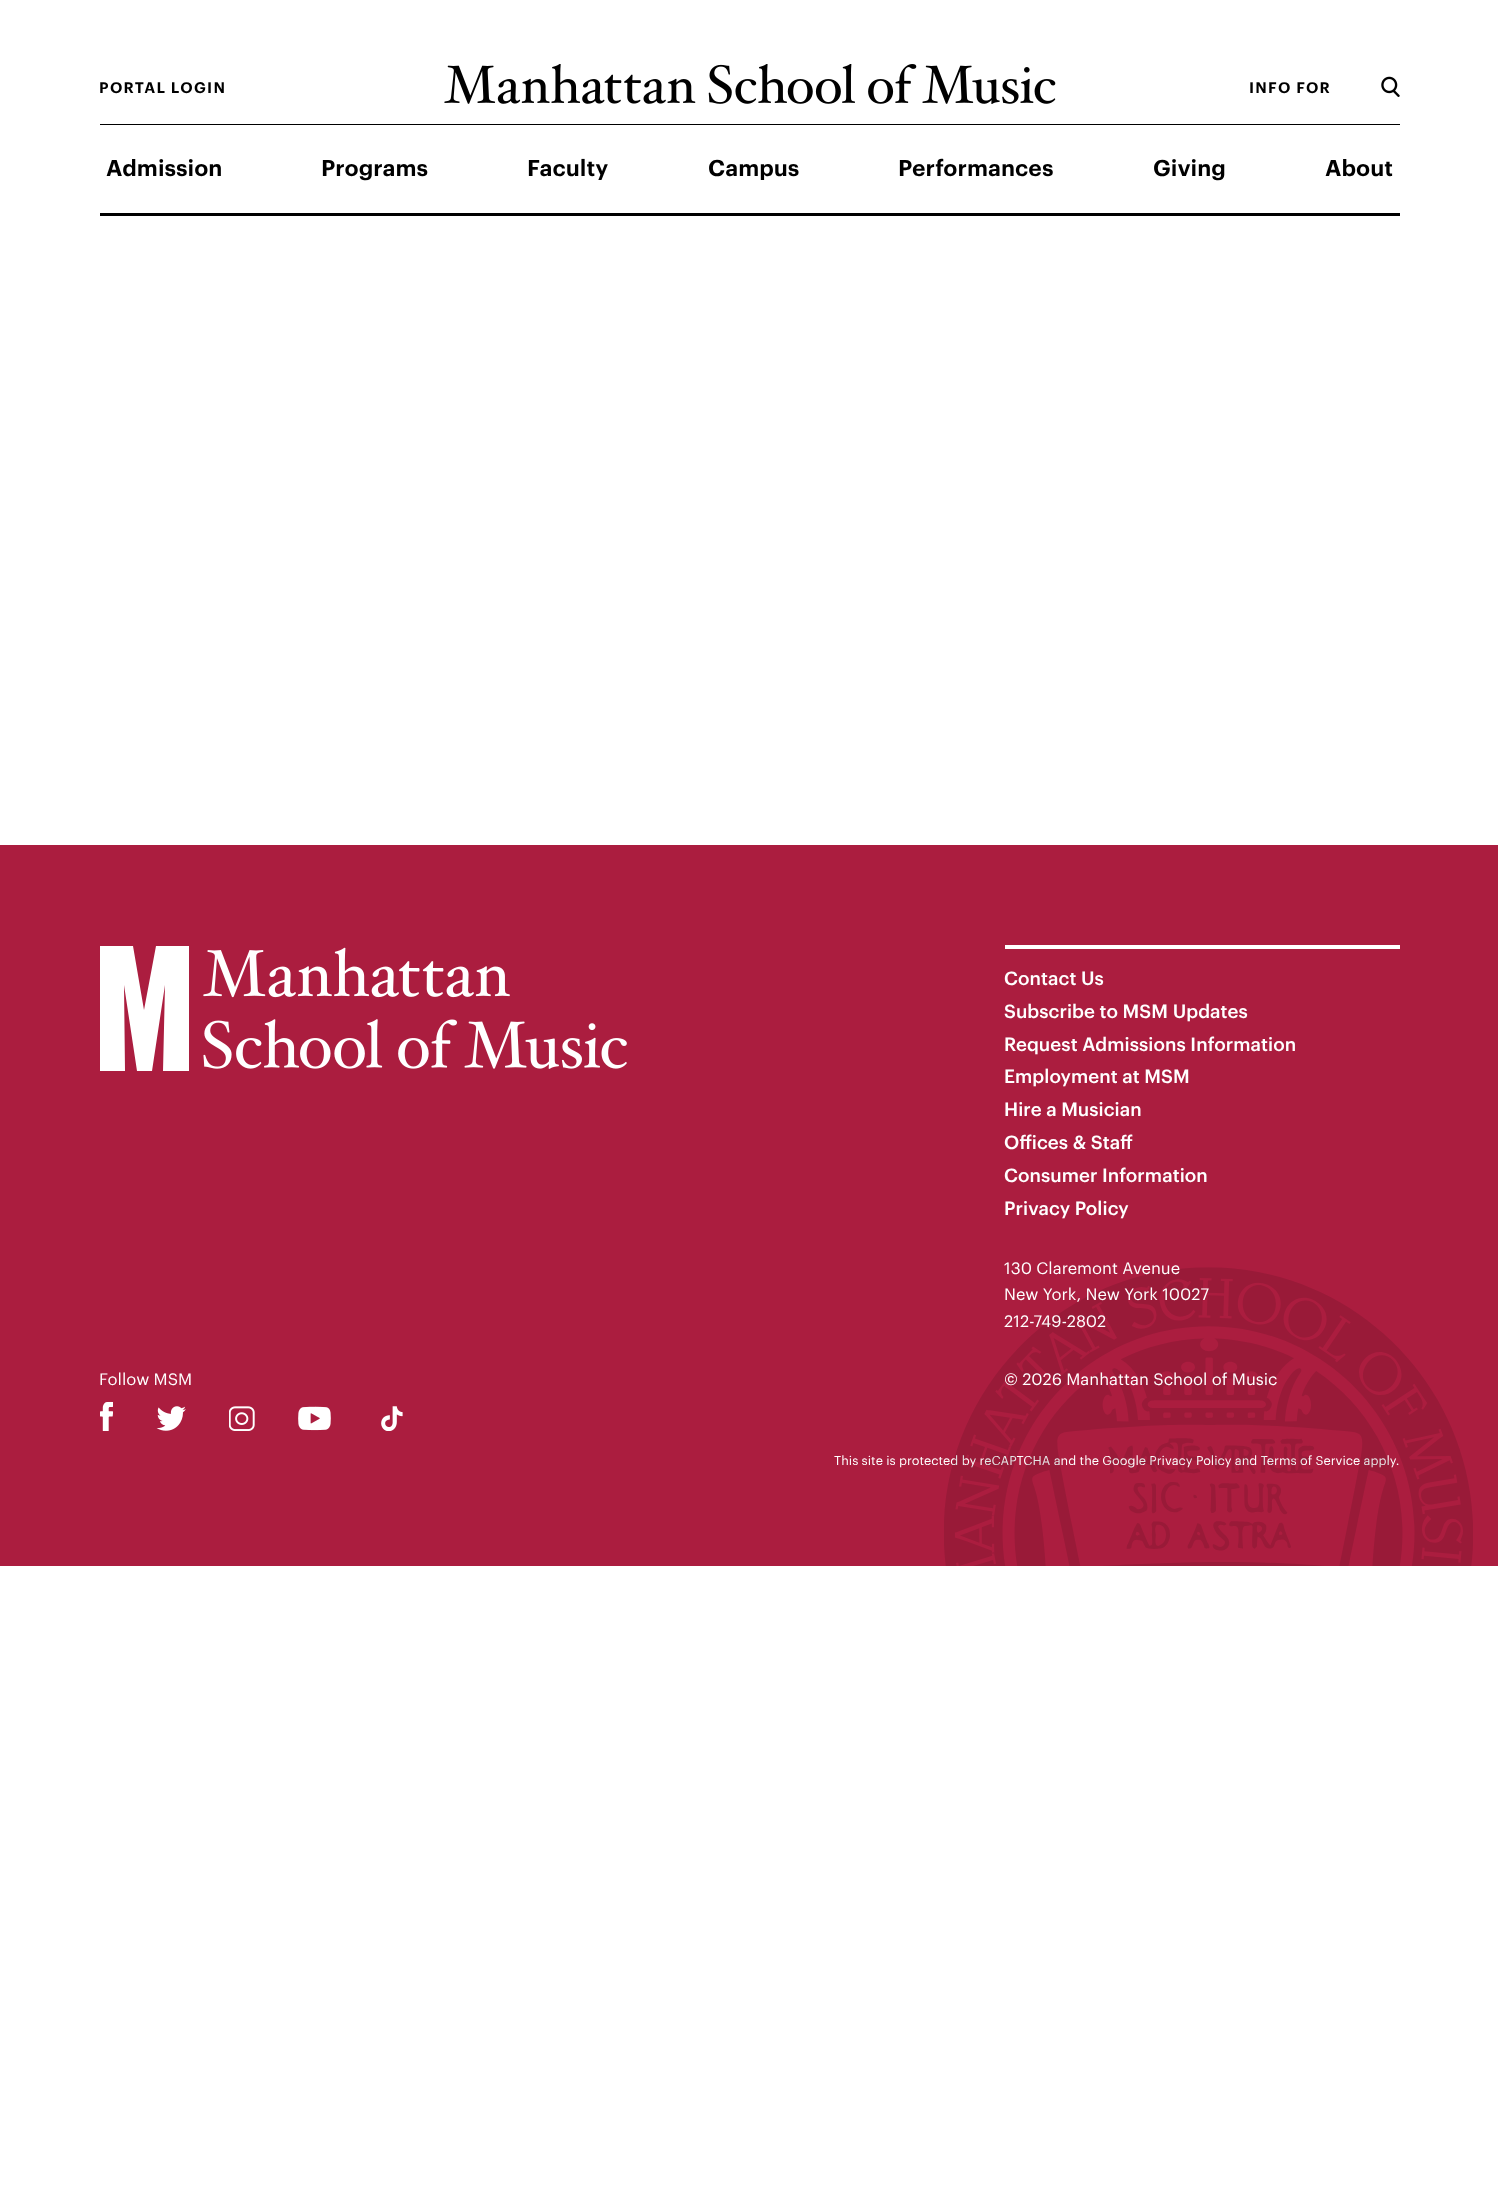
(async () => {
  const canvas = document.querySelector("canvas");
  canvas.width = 1498;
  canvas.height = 2203;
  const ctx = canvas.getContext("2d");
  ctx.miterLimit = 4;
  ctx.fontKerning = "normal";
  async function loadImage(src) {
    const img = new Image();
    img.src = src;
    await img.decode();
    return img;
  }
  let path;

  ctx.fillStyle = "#ffffff";
  ctx.fillRect(0, 0, 1498, 2203);
  ctx.fillStyle = "#000000";
  ctx.fillRect(100, 124, 1300, 1);
  ctx.drawImage(await loadImage("img/1.png"), 444, 64, 612, 40);
  ctx.drawImage(await loadImage("img/2.png"), 1381, 76, 19, 21);
  ctx.fillRect(100, 213, 1300, 3);
  ctx.fillStyle = "#ab1d3f";
  ctx.fillRect(0, 845, 1498, 721);
  ctx.fillStyle = "#ffffff";
  path = new Path2D("M156 946L144 1010L133 946H100V1071H125L124 985L137 1071H152L165 985L163 1071H189V946Z");
  ctx.fill(path, "evenodd");
  ctx.drawImage(await loadImage("img/3.png"), 203, 947, 424, 122);
  ctx.fillRect(1005, 945, 395, 4);
  ctx.drawImage(await loadImage("img/4.png"), 100, 1401, 13, 30);
  ctx.drawImage(await loadImage("img/5.png"), 156, 1406, 30, 25);
  ctx.drawImage(await loadImage("img/6.png"), 229, 1406, 26, 25);
  ctx.drawImage(await loadImage("img/7.png"), 298, 1406, 33, 25);
  ctx.drawImage(await loadImage("img/8.png"), 381, 1406, 22, 25);
  ctx.letterSpacing = "1.25px";
  ctx.font = "600 15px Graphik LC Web";
  ctx.fillStyle = "#000000";
  ctx.fillText("PORTAL LOGIN", 99, 93);
  ctx.fillText("INFO FOR", 1249, 93);
  ctx.letterSpacing = "0px";
  ctx.font = "600 22.5px Graphik LC Web";
  for (const [text, x, y] of [
    ["Admission", 106, 176],
    ["Programs", 321, 176],
    ["Faculty", 527, 176],
    ["Campus", 708, 176],
    ["Performances", 898, 176],
    ["Giving", 1153, 176],
    ["About", 1325, 176],
  ]) {
    ctx.fillText(text, x, y);
  }
  ctx.font = "500 18.75px Graphik";
  ctx.fillStyle = "#ffffff";
  for (const [text, x, y] of [
    ["Contact Us", 1004, 985],
    ["Subscribe to MSM Updates", 1004, 1018],
    ["Request Admissions Information", 1004, 1051],
    ["Employment at MSM", 1004, 1083],
    ["Hire a Musician", 1004, 1116],
    ["Offices & Staff", 1004, 1149],
    ["Consumer Information", 1004, 1182],
    ["Privacy Policy", 1004, 1215],
  ]) {
    ctx.fillText(text, x, y);
  }
  ctx.font = "16.25px Graphik";
  ctx.fillText("Follow MSM", 99, 1385);
  ctx.font = "12.5px Graphik";
  ctx.fillText("This site is protected by reCAPTCHA and the Google Privacy Policy and Terms of Service apply.", 834, 1465);
  ctx.drawImage(await loadImage("img/9.png"), 944, 1267, 529, 299);
  ctx.font = "16.25px Graphik";
  for (const [text, x, y] of [
    ["© 2026 Manhattan School of Music", 1004, 1385],
    ["212-749-2802", 1004, 1327],
    ["New York, New York 10027", 1004, 1300],
    ["130 Claremont Avenue", 1004, 1274],
  ]) {
    ctx.fillText(text, x, y);
  }
})();
